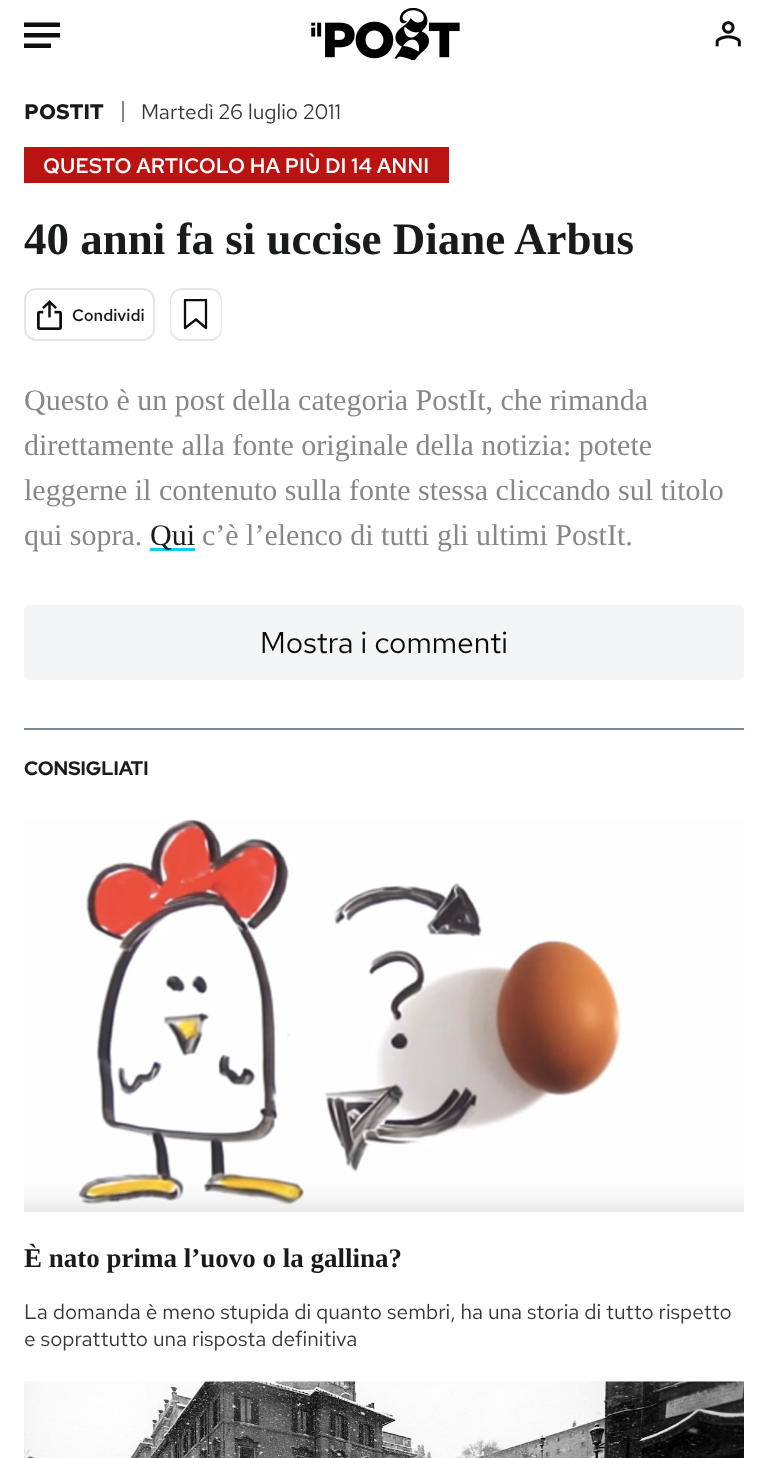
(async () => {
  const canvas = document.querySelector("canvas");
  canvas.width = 768;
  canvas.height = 1458;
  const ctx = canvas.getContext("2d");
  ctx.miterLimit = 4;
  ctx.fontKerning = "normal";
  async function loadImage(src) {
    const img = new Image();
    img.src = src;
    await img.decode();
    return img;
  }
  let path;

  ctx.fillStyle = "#ffffff";
  ctx.fillRect(0, 0, 768, 1458);
  ctx.fillStyle = "#0c0d0e";
  path = new Path2D("M60 33V37.5H24V33ZM51 43.5V48H24V43.5ZM60 22.5V27H24V22.5Z");
  ctx.fill(path);
  ctx.drawImage(await loadImage("img/1.png"), 311, 8, 149, 52);
  ctx.drawImage(await loadImage("img/2.png"), 715, 21, 26, 26);
  ctx.fillStyle = "#7a888b";
  ctx.fillRect(122, 101, 2, 21);
  ctx.fillStyle = "#bb1212";
  ctx.fillRect(24, 147, 425, 36);
  ctx.beginPath();
  ctx.roundRect(25, 289, 129, 51, 11);
  ctx.strokeStyle = "#e3e7e7";
  ctx.lineWidth = 2;
  ctx.stroke();
  ctx.drawImage(await loadImage("img/3.png"), 37, 300, 25, 30);
  ctx.beginPath();
  ctx.roundRect(171, 289, 50, 51, 11);
  ctx.stroke();
  ctx.fillStyle = "#ffffff";
  ctx.beginPath();
  ctx.roundRect(171, 290, 50, 49, 12);
  ctx.fill();
  ctx.save();
  ctx.beginPath();
  ctx.rect(180, 299, 32, 31);
  ctx.clip();
  path = new Path2D("M185 328V300H206V328L196 319.5Z");
  ctx.strokeStyle = "#0c0d0e";
  ctx.lineWidth = 2.3;
  ctx.lineJoin = "round";
  ctx.stroke(path);
  ctx.restore();
  ctx.fillStyle = "#0ecdea";
  ctx.fillRect(150, 548, 45, 3);
  ctx.fillStyle = "#f4f5f6";
  ctx.beginPath();
  ctx.roundRect(24, 605, 720, 75, 6);
  ctx.fill();
  ctx.fillStyle = "#7a888b";
  ctx.fillRect(24, 728, 720, 2);
  ctx.drawImage(await loadImage("img/4.png"), 24, 819, 720, 393);
  ctx.drawImage(await loadImage("img/5.png"), 24, 1381, 720, 77);
  ctx.font = "bold 21px Red Hat Text";
  ctx.fillStyle = "#191b1b";
  ctx.fillText("POSTIT", 24, 119);
  ctx.font = "21px Red Hat Text";
  ctx.fillStyle = "#323839";
  ctx.fillText("Martedì 26 luglio 2011", 141, 119);
  ctx.font = "600 21px Red Hat Text";
  ctx.fillStyle = "#ffffff";
  ctx.fillText("QUESTO ARTICOLO HA PIÙ DI 14 ANNI", 43, 173);
  ctx.font = "bold 45px Liberation Serif";
  ctx.fillStyle = "#191b1b";
  ctx.fillText("40 anni fa si uccise Diane Arbus", 24, 254);
  ctx.font = "600 16.5px Red Hat Text";
  ctx.fillText("Condividi", 72, 321);
  ctx.font = "30px Liberation Serif";
  ctx.fillStyle = "#878787";
  for (const [text, x, y] of [
    ["Questo è un post della categoria PostIt, che rimanda", 24, 410],
    ["direttamente alla fonte originale della notizia: potete", 24, 455],
    ["leggerne il contenuto sulla fonte stessa cliccando sul titolo", 24, 500],
    ["qui sopra.", 24, 545],
  ]) {
    ctx.fillText(text, x, y);
  }
  ctx.fillStyle = "#191b1b";
  ctx.fillText("Qui", 150, 545);
  ctx.fillStyle = "#878787";
  ctx.fillText("c’è l’elenco di tutti gli ultimi PostIt.", 202, 545);
  ctx.font = "30px Red Hat Text";
  ctx.fillStyle = "#0c0d0e";
  ctx.fillText("Mostra i commenti", 260, 653);
  ctx.font = "bold 19.5px Red Hat Display";
  ctx.fillStyle = "#191b1b";
  ctx.fillText("CONSIGLIATI", 24, 775);
  ctx.font = "bold 27px Liberation Serif";
  ctx.fillText("È nato prima l’uovo o la gallina?", 24, 1267);
  ctx.font = "21px Red Hat Text";
  ctx.fillStyle = "#323839";
  ctx.fillText("La domanda è meno stupida di quanto sembri, ha una storia di tutto rispetto", 24, 1319);
  ctx.fillText("e soprattutto una risposta definitiva", 24, 1346);
})();
